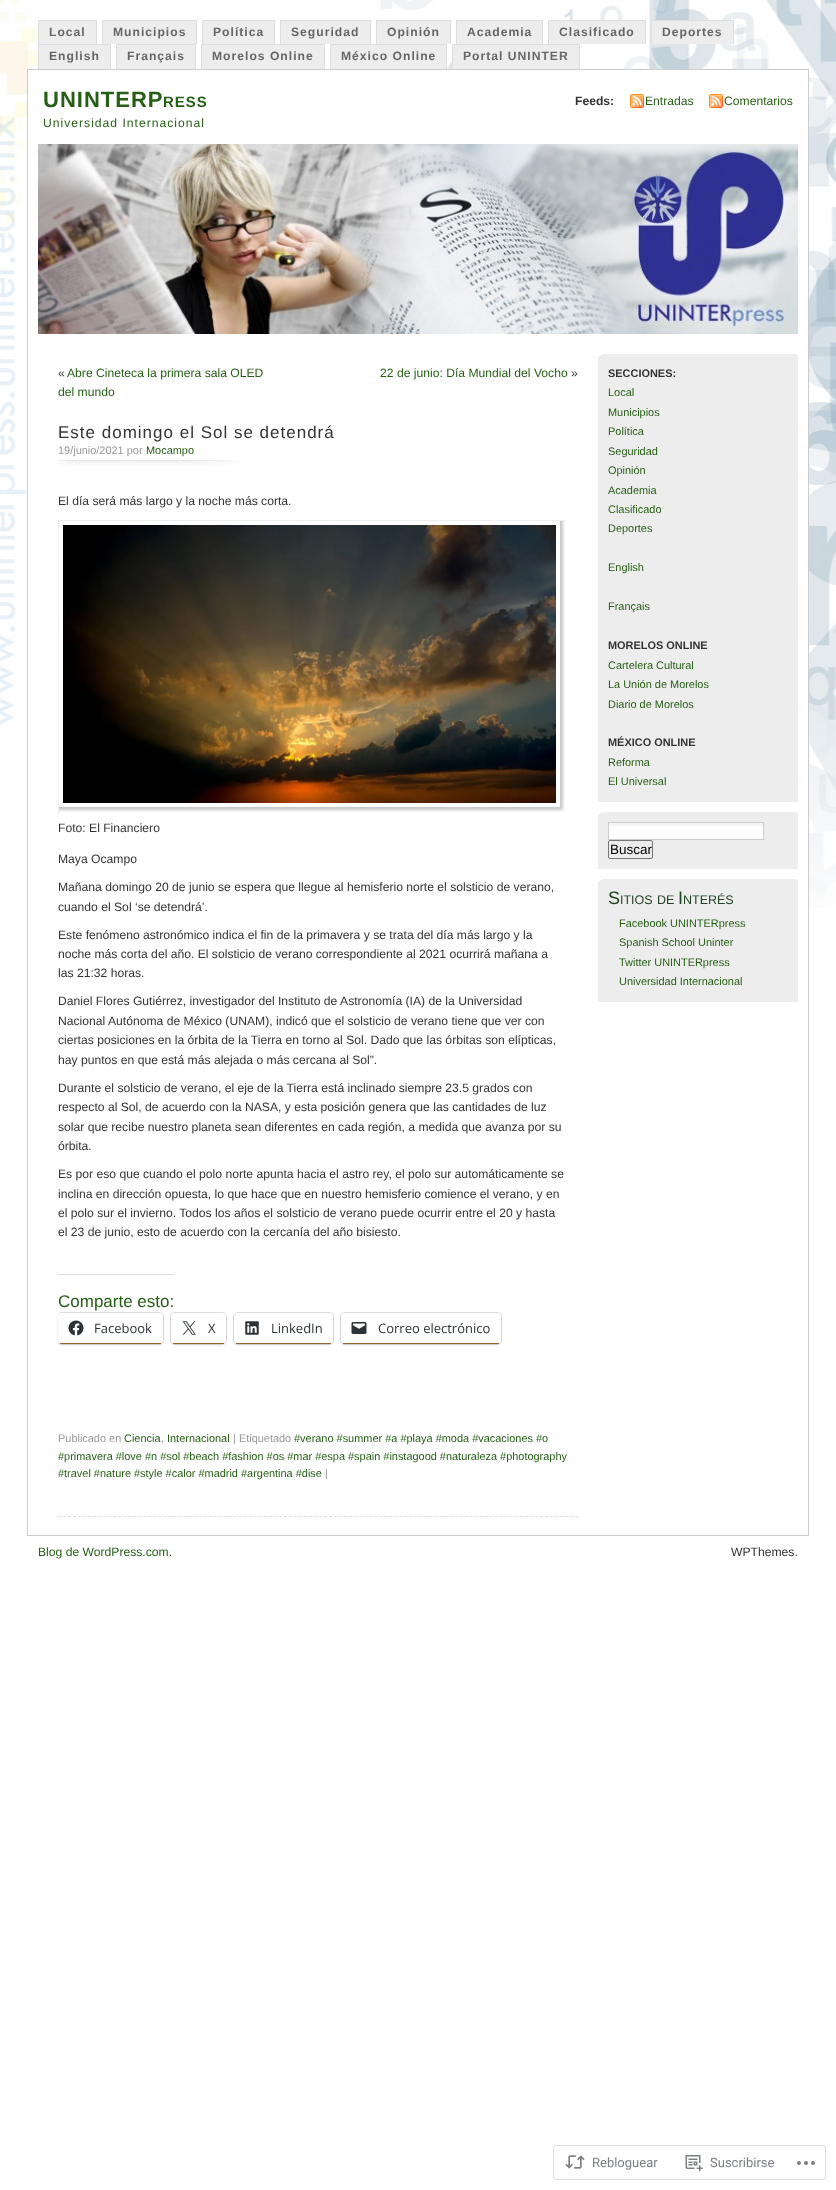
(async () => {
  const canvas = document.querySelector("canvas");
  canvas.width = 836;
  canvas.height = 2190;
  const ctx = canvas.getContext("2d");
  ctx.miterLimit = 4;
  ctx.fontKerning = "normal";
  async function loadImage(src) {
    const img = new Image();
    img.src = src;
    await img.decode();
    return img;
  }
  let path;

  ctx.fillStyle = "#ffffff";
  ctx.fillRect(0, 0, 836, 2190);
  ctx.drawImage(await loadImage("img/1.png"), 0, 0, 836, 908);
  for (const [x, y, w, h, color] of [
    [39, 21, 57, 23, "#ededed"],
    [38, 20, 59, 1, "#dedede"],
    [96, 20, 1, 24, "#dedede"],
    [38, 20, 1, 24, "#dedede"],
    [103, 21, 93, 23, "#ededed"],
    [102, 20, 95, 1, "#dedede"],
    [196, 20, 1, 24, "#dedede"],
    [102, 20, 1, 24, "#dedede"],
    [203, 21, 71, 23, "#ededed"],
    [202, 20, 73, 1, "#dedede"],
    [274, 20, 1, 24, "#dedede"],
    [202, 20, 1, 24, "#dedede"],
    [281, 21, 89, 23, "#ededed"],
    [280, 20, 91, 1, "#dedede"],
    [370, 20, 1, 24, "#dedede"],
    [280, 20, 1, 24, "#dedede"],
    [377, 21, 73, 23, "#ededed"],
    [376, 20, 75, 1, "#dedede"],
    [450, 20, 1, 24, "#dedede"],
    [376, 20, 1, 24, "#dedede"],
    [457, 21, 85, 23, "#ededed"],
    [456, 20, 87, 1, "#dedede"],
    [542, 20, 1, 24, "#dedede"],
    [456, 20, 1, 24, "#dedede"],
    [549, 21, 96, 23, "#ededed"],
    [548, 20, 98, 1, "#dedede"],
    [645, 20, 1, 24, "#dedede"],
    [548, 20, 1, 24, "#dedede"],
    [652, 21, 81, 23, "#ededed"],
    [651, 20, 83, 1, "#dedede"],
    [733, 20, 1, 24, "#dedede"],
    [651, 20, 1, 24, "#dedede"],
    [39, 45, 71, 24, "#ededed"],
    [38, 44, 73, 1, "#dedede"],
    [110, 44, 1, 25, "#dedede"],
    [38, 44, 1, 25, "#dedede"],
    [117, 45, 78, 24, "#ededed"],
    [116, 44, 80, 1, "#dedede"],
    [195, 44, 1, 25, "#dedede"],
    [116, 44, 1, 25, "#dedede"],
    [202, 45, 122, 24, "#ededed"],
    [201, 44, 124, 1, "#dedede"],
    [324, 44, 1, 25, "#dedede"],
    [201, 44, 1, 25, "#dedede"],
    [331, 45, 115, 24, "#ededed"],
    [330, 44, 117, 1, "#dedede"],
    [446, 44, 1, 25, "#dedede"],
    [330, 44, 1, 25, "#dedede"],
    [453, 45, 126, 24, "#ededed"],
    [452, 44, 128, 1, "#dedede"],
    [579, 44, 1, 25, "#dedede"],
    [452, 44, 1, 25, "#dedede"],
    [28, 70, 780, 838, "#ffffff"],
  ]) {
    ctx.fillStyle = color;
    ctx.fillRect(x, y, w, h);
  }
  ctx.strokeStyle = "#cccccc";
  ctx.strokeRect(27.5, 69.5, 781, 1466);
  ctx.drawImage(await loadImage("img/2.png"), 630, 94, 14, 14);
  ctx.drawImage(await loadImage("img/2.png"), 709, 94, 14, 14);
  ctx.drawImage(await loadImage("img/3.png"), 38, 144, 760, 190);
  path = new Path2D("M58 1516.5H578");
  ctx.strokeStyle = "#dddddd";
  ctx.setLineDash([3, 2.02]);
  ctx.stroke(path);
  ctx.drawImage(await loadImage("img/4.png"), 58, 459, 184, 7);
  ctx.fillStyle = "#eeeeee";
  ctx.fillRect(58, 520, 508, 1);
  ctx.fillRect(58, 520, 1, 293);
  ctx.drawImage(await loadImage("img/5.png"), 59, 521, 506, 291);
  ctx.fillStyle = "#dcdcde";
  ctx.fillRect(58, 1274, 116, 1);
  ctx.save();
  ctx.beginPath();
  ctx.rect(58, 484, 520, 934);
  ctx.clip();
  ctx.beginPath();
  ctx.roundRect(57.5, 1312.5, 106, 32, 4.5);
  ctx.strokeStyle = "#e0e0e0";
  ctx.setLineDash([]);
  ctx.stroke();
  ctx.restore();
  ctx.fillStyle = "rgba(0, 0, 0, 0.12)";
  ctx.filter = "blur(1px)";
  ctx.beginPath();
  ctx.roundRect(58, 1314, 105, 31, 4);
  ctx.fill();
  ctx.filter = "none";
  ctx.fillStyle = "#ffffff";
  ctx.beginPath();
  ctx.roundRect(58, 1313, 105, 31, 4);
  ctx.fill();
  ctx.fillStyle = "#996633";
  ctx.fillRect(60, 1343, 101, 1);
  ctx.drawImage(await loadImage("img/6.png"), 68, 1320, 16, 16);
  ctx.beginPath();
  ctx.roundRect(170.5, 1312.5, 56, 32, 4.5);
  ctx.strokeStyle = "#e0e0e0";
  ctx.setLineDash([]);
  ctx.stroke();
  ctx.fillStyle = "rgba(0, 0, 0, 0.12)";
  ctx.filter = "blur(1px)";
  ctx.beginPath();
  ctx.roundRect(171, 1314, 55, 31, 4);
  ctx.fill();
  ctx.filter = "none";
  ctx.fillStyle = "#ffffff";
  ctx.beginPath();
  ctx.roundRect(171, 1313, 55, 31, 4);
  ctx.fill();
  ctx.fillStyle = "#996633";
  ctx.fillRect(173, 1343, 51, 1);
  ctx.drawImage(await loadImage("img/7.png"), 182, 1321, 14, 14);
  ctx.beginPath();
  ctx.roundRect(233.5, 1312.5, 100, 32, 4.5);
  ctx.stroke();
  ctx.fillStyle = "rgba(0, 0, 0, 0.12)";
  ctx.filter = "blur(1px)";
  ctx.beginPath();
  ctx.roundRect(234, 1314, 99, 31, 4);
  ctx.fill();
  ctx.filter = "none";
  ctx.fillStyle = "#ffffff";
  ctx.beginPath();
  ctx.roundRect(234, 1313, 99, 31, 4);
  ctx.fill();
  ctx.fillStyle = "#996633";
  ctx.fillRect(236, 1343, 95, 1);
  ctx.drawImage(await loadImage("img/8.png"), 245, 1321, 14, 14);
  ctx.beginPath();
  ctx.roundRect(340.5, 1312.5, 161, 32, 4.5);
  ctx.stroke();
  ctx.fillStyle = "rgba(0, 0, 0, 0.12)";
  ctx.filter = "blur(1px)";
  ctx.beginPath();
  ctx.roundRect(341, 1314, 160, 31, 4);
  ctx.fill();
  ctx.filter = "none";
  ctx.fillStyle = "#ffffff";
  ctx.beginPath();
  ctx.roundRect(341, 1313, 160, 31, 4);
  ctx.fill();
  ctx.fillStyle = "#996633";
  ctx.fillRect(343, 1343, 156, 1);
  ctx.drawImage(await loadImage("img/9.png"), 351, 1322, 16, 12);
  ctx.fillStyle = "#ededed";
  ctx.fillRect(598, 357, 200, 445);
  ctx.drawImage(await loadImage("img/10.png"), 598, 354, 200, 3);
  ctx.fillRect(598, 815, 200, 54);
  ctx.drawImage(await loadImage("img/10.png"), 598, 812, 200, 3);
  ctx.fillStyle = "#ffffff";
  ctx.fillRect(609, 826, 154, 13);
  ctx.fillStyle = "#f6f5f6";
  ctx.fillRect(608, 823, 156, 3);
  ctx.strokeStyle = "#cccccc";
  ctx.strokeRect(608.5, 822.5, 155, 17);
  ctx.beginPath();
  ctx.roundRect(608.5, 840.5, 44, 18, 1.5);
  ctx.strokeStyle = "#767676";
  ctx.stroke();
  ctx.fillStyle = "#ededed";
  ctx.fillRect(598, 882, 200, 120);
  ctx.drawImage(await loadImage("img/10.png"), 598, 879, 200, 3);
  ctx.beginPath();
  ctx.roundRect(553.5, 2145.5, 272, 34, 2.5);
  ctx.strokeStyle = "#dddddf";
  ctx.stroke();
  ctx.drawImage(await loadImage("img/11.png"), 565, 2155, 20, 14);
  ctx.drawImage(await loadImage("img/12.png"), 685, 2155, 18, 17);
  ctx.drawImage(await loadImage("img/13.png"), 797, 2161, 18, 4);
  ctx.letterSpacing = "1px";
  ctx.font = "bold 12.15px Liberation Sans";
  ctx.fillStyle = "#666666";
  for (const [text, x, y] of [
    ["Local", 49, 36],
    ["Municipios", 113, 36],
    ["Política", 213, 36],
    ["Seguridad", 291, 36],
    ["Opinión", 387, 36],
    ["Academia", 467, 36],
    ["Clasificado", 559, 36],
    ["Deportes", 662, 36],
    ["English", 49, 60],
    ["Français", 127, 60],
    ["Morelos Online", 212, 60],
    ["México Online", 341, 60],
    ["Portal UNINTER", 463, 60],
  ]) {
    ctx.fillText(text, x, y);
  }
  ctx.font = "bold 22px Liberation Sans";
  ctx.fillStyle = "#265e15";
  ctx.fillText("UNINTERP", 43, 107);
  ctx.font = "bold 15px Liberation Sans";
  ctx.fillText("RESS", 163, 107);
  ctx.font = "12.15px Liberation Sans";
  ctx.fillText("Universidad Internacional", 43, 127);
  ctx.letterSpacing = "0px";
  ctx.font = "bold 12.15px Liberation Sans";
  ctx.fillStyle = "#333333";
  ctx.fillText("Feeds:", 575, 105);
  ctx.font = "12.15px Liberation Sans";
  ctx.fillStyle = "#265e15";
  ctx.fillText("Entradas", 645, 105);
  ctx.fillText("Comentarios", 724, 105);
  ctx.fillStyle = "#333333";
  ctx.fillText("«", 58, 377);
  ctx.fillStyle = "#265e15";
  for (const [text, x, y] of [
    ["Abre Cineteca la primera sala OLED", 67, 377],
    ["del mundo", 58, 396],
    ["22 de junio: Día Mundial del Vocho", 380, 377],
  ]) {
    ctx.fillText(text, x, y);
  }
  ctx.fillStyle = "#333333";
  ctx.fillText("»", 571, 377);
  ctx.letterSpacing = "1px";
  ctx.font = "17px Liberation Sans";
  ctx.fillText("Este domingo el Sol se detendrá", 58, 438);
  ctx.letterSpacing = "0px";
  ctx.font = "10.95px Liberation Sans";
  ctx.fillStyle = "#999999";
  ctx.fillText("19/junio/2021 por", 58, 454);
  ctx.fillStyle = "#265e15";
  ctx.fillText("Mocampo", 146, 454);
  ctx.font = "12.15px Liberation Sans";
  ctx.fillStyle = "#333333";
  for (const [text, x, y] of [
    ["El día será más largo y la noche más corta.", 58, 505],
    ["Foto: El Financiero", 58, 832],
    ["Maya Ocampo", 58, 863],
    ["Mañana domingo 20 de junio se espera que llegue al hemisferio norte el solsticio de verano,", 58, 891],
    ["cuando el Sol ‘se detendrá’.", 58, 911],
    ["Este fenómeno astronómico indica el fin de la primavera y se trata del día más largo y la", 58, 939],
    ["noche más corta del año. El solsticio de verano correspondiente al 2021 ocurrirá mañana a", 58, 958],
    ["las 21:32 horas.", 58, 977],
    ["Daniel Flores Gutiérrez, investigador del Instituto de Astronomía (IA) de la Universidad", 58, 1005],
    ["Nacional Autónoma de México (UNAM), indicó que el solsticio de verano tiene que ver con", 58, 1025],
    ["ciertas posiciones en la órbita de la Tierra en torno al Sol. Dado que las órbitas son elípticas,", 58, 1044],
    ["hay puntos en que está más alejada o más cercana al Sol”.", 58, 1064],
    ["Durante el solsticio de verano, el eje de la Tierra está inclinado siempre 23.5 grados con", 58, 1092],
    ["respecto al Sol, de acuerdo con la NASA, y esta posición genera que las cantidades de luz", 58, 1111],
    ["solar que recibe nuestro planeta sean diferentes en cada región, a medida que avanza por su", 58, 1131],
    ["órbita.", 58, 1150],
    ["Es por eso que cuando el polo norte apunta hacia el astro rey, el polo sur automáticamente se", 58, 1178],
    ["inclina en dirección opuesta, lo que hace que en nuestro hemisferio comience el verano, y en", 58, 1198],
    ["el polo sur el invierno. Todos los años el solsticio de verano puede ocurrir entre el 20 y hasta", 58, 1217],
    ["el 23 de junio, esto de acuerdo con la cercanía del año bisiesto.", 58, 1236],
  ]) {
    ctx.fillText(text, x, y);
  }
  ctx.font = "17px Liberation Sans";
  ctx.fillStyle = "#265e15";
  ctx.fillText("Comparte esto:", 58, 1307);
  ctx.font = "13px Open Sans";
  ctx.fillStyle = "#2c3338";
  for (const [text, x, y] of [
    ["Facebook", 94, 1333],
    ["X", 208, 1333],
    ["LinkedIn", 271, 1333],
    ["Correo electrónico", 378, 1333],
  ]) {
    ctx.fillText(text, x, y);
  }
  ctx.font = "10.95px Liberation Sans";
  ctx.fillStyle = "#999999";
  ctx.fillText("Publicado en", 58, 1442);
  ctx.fillStyle = "#265e15";
  ctx.fillText("Ciencia", 124, 1442);
  ctx.fillStyle = "#999999";
  ctx.fillText(",", 161, 1442);
  ctx.fillStyle = "#265e15";
  ctx.fillText("Internacional", 167, 1442);
  ctx.fillStyle = "#999999";
  ctx.fillText("| Etiquetado", 233, 1442);
  ctx.fillStyle = "#265e15";
  for (const [text, x, y] of [
    ["#verano #summer #a #playa #moda #vacaciones #o", 294, 1442],
    ["#primavera #love #n #sol #beach #fashion #os #mar #espa #spain #instagood #naturaleza #photography", 58, 1460],
    ["#travel #nature #style #calor #madrid #argentina #dise", 58, 1477],
  ]) {
    ctx.fillText(text, x, y);
  }
  ctx.fillStyle = "#999999";
  ctx.fillText("|", 325, 1477);
  ctx.font = "bold 10.95px Liberation Sans";
  ctx.fillStyle = "#333333";
  ctx.fillText("SECCIONES:", 608, 377);
  ctx.font = "10.95px Liberation Sans";
  ctx.fillStyle = "#265e15";
  for (const [text, x, y] of [
    ["Local", 608, 396],
    ["Municipios", 608, 416],
    ["Política", 608, 435],
    ["Seguridad", 608, 455],
    ["Opinión", 608, 474],
    ["Academia", 608, 494],
    ["Clasificado", 608, 513],
    ["Deportes", 608, 532],
    ["English", 608, 571],
    ["Français", 608, 610],
  ]) {
    ctx.fillText(text, x, y);
  }
  ctx.font = "bold 10.95px Liberation Sans";
  ctx.fillStyle = "#333333";
  ctx.fillText("MORELOS ONLINE", 608, 649);
  ctx.font = "10.95px Liberation Sans";
  ctx.fillStyle = "#265e15";
  for (const [text, x, y] of [
    ["Cartelera Cultural", 608, 669],
    ["La Unión de Morelos", 608, 688],
    ["Diario de Morelos", 608, 708],
  ]) {
    ctx.fillText(text, x, y);
  }
  ctx.font = "bold 10.95px Liberation Sans";
  ctx.fillStyle = "#333333";
  ctx.fillText("MÉXICO ONLINE", 608, 746);
  ctx.font = "10.95px Liberation Sans";
  ctx.fillStyle = "#265e15";
  ctx.fillText("Reforma", 608, 766);
  ctx.fillText("El Universal", 608, 785);
  ctx.font = "13.5px Liberation Sans";
  ctx.fillStyle = "#000000";
  ctx.fillText("Buscar", 610, 854);
  ctx.font = "18px Liberation Sans";
  ctx.fillStyle = "#224422";
  ctx.fillText("S", 608, 904);
  ctx.font = "12.5px Liberation Sans";
  ctx.fillText("ITIOS", 620, 904);
  ctx.fillText("DE", 657, 904);
  ctx.font = "18px Liberation Sans";
  ctx.fillText("I", 678, 904);
  ctx.font = "12.5px Liberation Sans";
  ctx.fillText("NTERÉS", 683, 904);
  ctx.font = "10.95px Liberation Sans";
  ctx.fillStyle = "#265e15";
  for (const [text, x, y] of [
    ["Facebook UNINTERpress", 619, 927],
    ["Spanish School Uninter", 619, 946],
    ["Twitter UNINTERpress", 619, 966],
    ["Universidad Internacional", 619, 985],
  ]) {
    ctx.fillText(text, x, y);
  }
  ctx.font = "12.15px Liberation Sans";
  ctx.fillText("Blog de WordPress.com.", 38, 1556);
  ctx.fillStyle = "#333333";
  ctx.fillText("WPThemes.", 731, 1556);
  ctx.font = "13px Roboto";
  ctx.fillStyle = "#7b7f85";
  ctx.fillText("Rebloguear", 592, 2167);
  ctx.fillText("Suscribirse", 710, 2167);
})();
